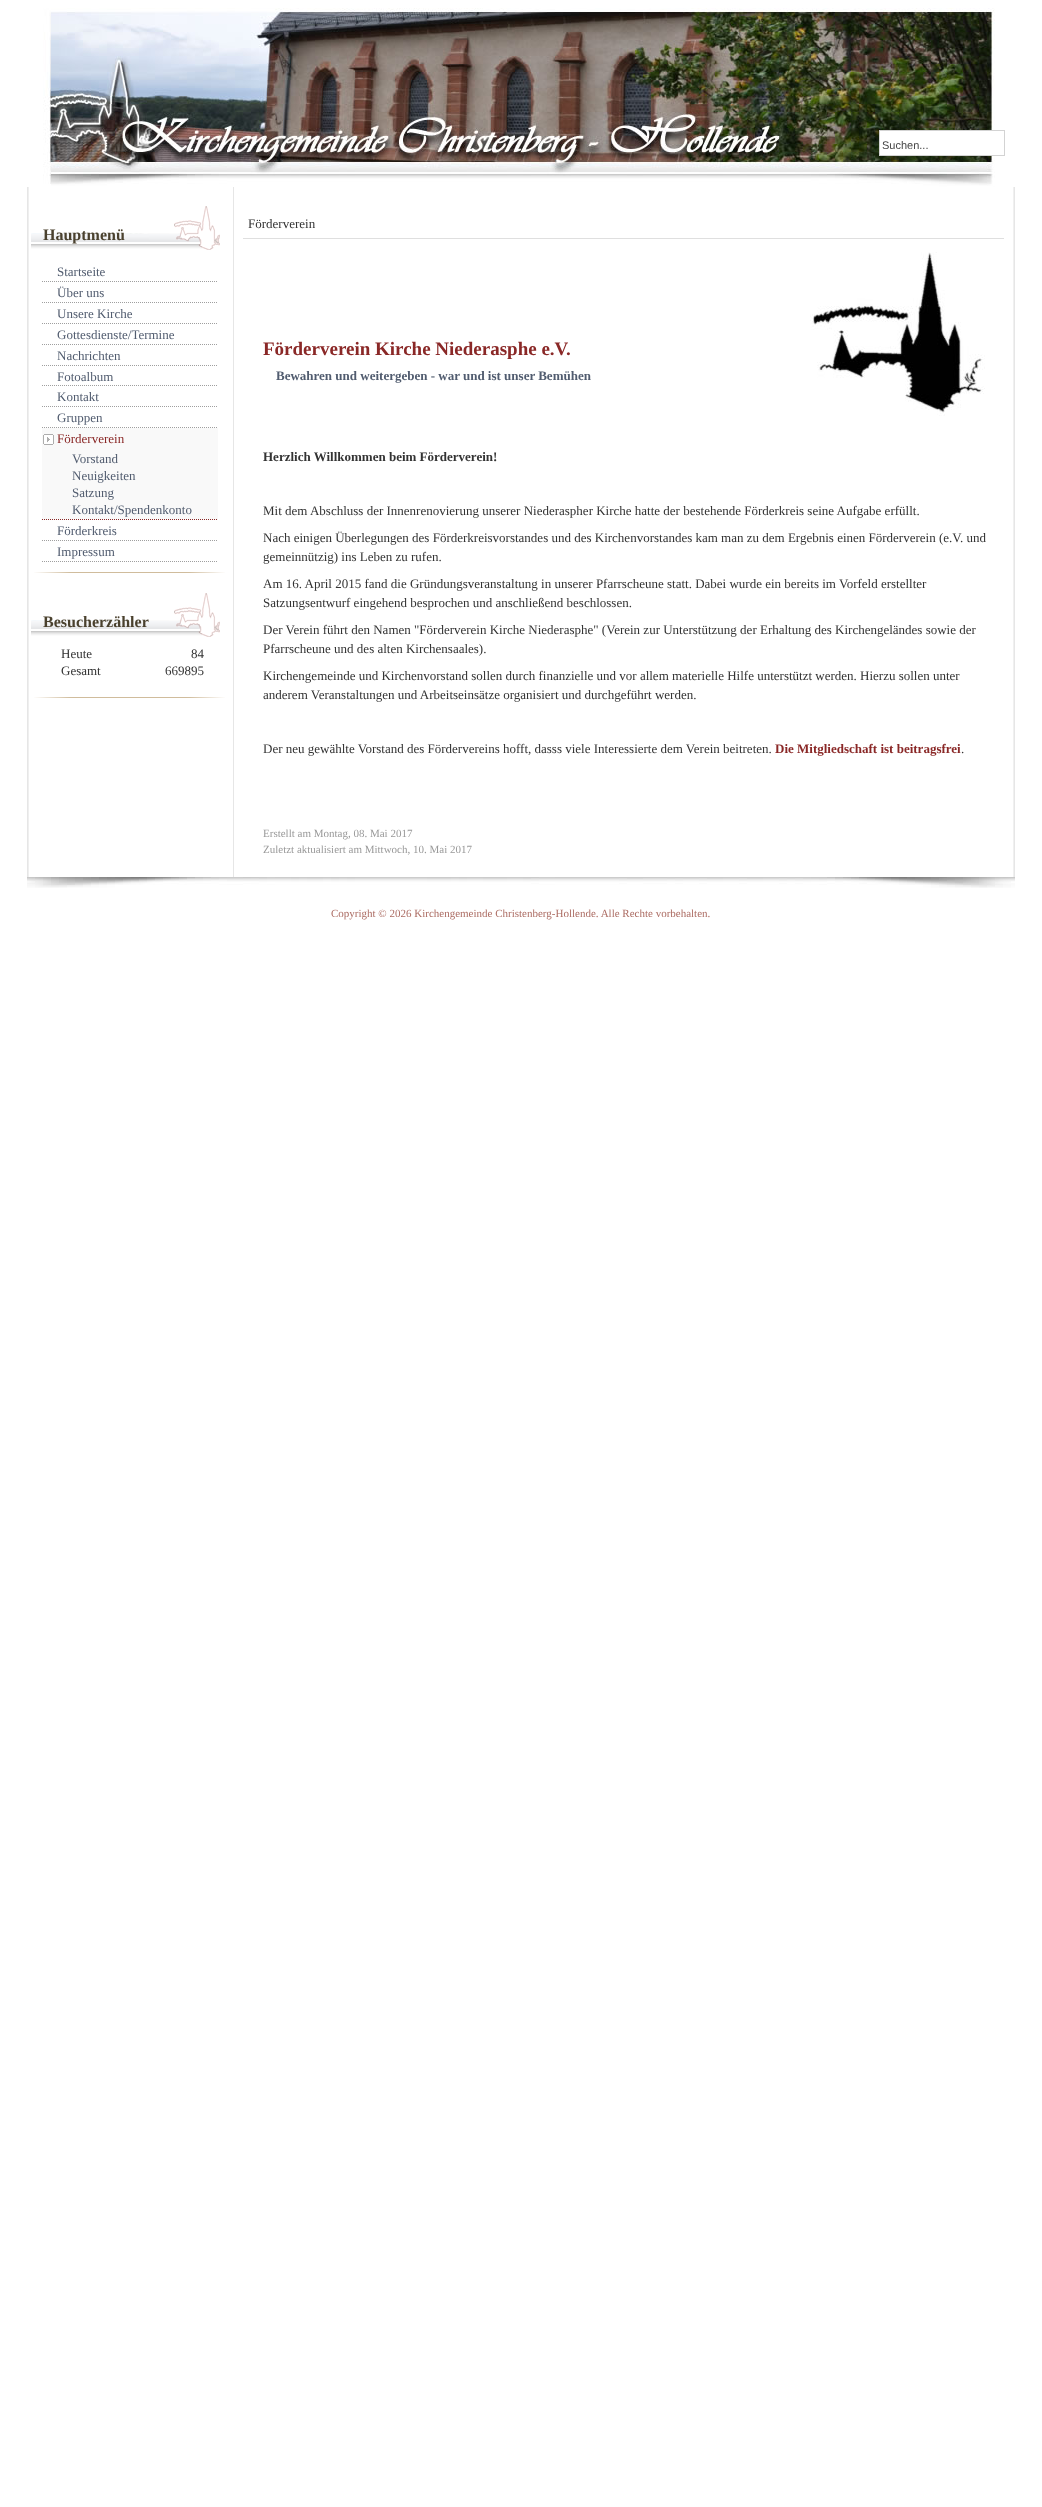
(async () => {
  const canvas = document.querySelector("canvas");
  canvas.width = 1042;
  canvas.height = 2507;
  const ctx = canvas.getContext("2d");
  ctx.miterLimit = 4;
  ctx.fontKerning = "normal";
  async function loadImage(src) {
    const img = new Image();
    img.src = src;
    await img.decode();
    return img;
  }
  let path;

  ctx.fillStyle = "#ffffff";
  ctx.fillRect(0, 0, 1042, 2507);
  ctx.drawImage(await loadImage("img/1.png"), 27, 187, 988, 690);
  ctx.drawImage(await loadImage("img/2.png"), 27, 0, 988, 187);
  ctx.fillRect(880, 131, 115, 24);
  ctx.strokeStyle = "#d3d3d3";
  ctx.strokeRect(879.5, 130.5, 125, 25);
  ctx.drawImage(await loadImage("img/3.png"), 34, 572, 191, 1);
  ctx.drawImage(await loadImage("img/4.png"), 31, 206, 189, 44);
  path = new Path2D("M42 281.5H218");
  ctx.strokeStyle = "#9f9f9f";
  ctx.setLineDash([1, 1]);
  ctx.stroke(path);
  path = new Path2D("M42 302.5H218");
  ctx.stroke(path);
  path = new Path2D("M42 323.5H218");
  ctx.stroke(path);
  path = new Path2D("M42 344.5H218");
  ctx.stroke(path);
  path = new Path2D("M42 365.5H218");
  ctx.stroke(path);
  path = new Path2D("M42 385.5H218");
  ctx.stroke(path);
  path = new Path2D("M42 406.5H218");
  ctx.stroke(path);
  path = new Path2D("M42 427.5H218");
  ctx.stroke(path);
  ctx.fillStyle = "#f9f9f9";
  ctx.fillRect(42, 428, 176, 92);
  ctx.drawImage(await loadImage("img/5.png"), 43, 434, 11, 11);
  path = new Path2D("M42 519.5H218");
  ctx.strokeStyle = "#8a2827";
  ctx.stroke(path);
  path = new Path2D("M42 540.5H218");
  ctx.strokeStyle = "#9f9f9f";
  ctx.stroke(path);
  path = new Path2D("M42 561.5H218");
  ctx.stroke(path);
  ctx.drawImage(await loadImage("img/3.png"), 34, 697, 191, 1);
  ctx.drawImage(await loadImage("img/4.png"), 31, 593, 189, 44);
  ctx.fillStyle = "#dfdfdf";
  ctx.fillRect(243, 238, 761, 1);
  ctx.drawImage(await loadImage("img/6.png"), 810, 252, 175, 164);
  ctx.drawImage(await loadImage("img/7.png"), 27, 877, 988, 11);
  ctx.font = "11px Liberation Sans";
  ctx.fillStyle = "#454545";
  ctx.fillText("Suchen...", 882, 149);
  ctx.font = "bold 16px Liberation Serif";
  ctx.fillStyle = "#4a412e";
  ctx.fillText("Hauptmenü", 43, 240);
  ctx.font = "13px Liberation Serif";
  ctx.fillStyle = "#515c6f";
  for (const [text, x, y] of [
    ["Startseite", 57, 276],
    ["Über uns", 57, 297],
    ["Unsere Kirche", 57, 318],
    ["Gottesdienste/Termine", 57, 339],
    ["Nachrichten", 57, 360],
    ["Fotoalbum", 57, 381],
    ["Kontakt", 57, 401],
    ["Gruppen", 57, 422],
  ]) {
    ctx.fillText(text, x, y);
  }
  ctx.fillStyle = "#8a2827";
  ctx.fillText("Förderverein", 57, 443);
  ctx.fillStyle = "#515c6f";
  for (const [text, x, y] of [
    ["Vorstand", 72, 463],
    ["Neuigkeiten", 72, 480],
    ["Satzung", 72, 497],
    ["Kontakt/Spendenkonto", 72, 514],
    ["Förderkreis", 57, 535],
    ["Impressum", 57, 556],
  ]) {
    ctx.fillText(text, x, y);
  }
  ctx.font = "bold 16px Liberation Serif";
  ctx.fillStyle = "#4a412e";
  ctx.fillText("Besucherzähler", 43, 627);
  ctx.font = "13px Liberation Serif";
  ctx.fillStyle = "#333333";
  for (const [text, x, y] of [
    ["Heute", 61, 658],
    ["84", 191, 658],
    ["Gesamt", 61, 675],
    ["669895", 165, 675],
    ["Förderverein", 248, 228],
  ]) {
    ctx.fillText(text, x, y);
  }
  ctx.font = "bold 19px Liberation Serif";
  ctx.fillStyle = "#8a2827";
  ctx.fillText("Förderverein Kirche Niederasphe e.V.", 263, 355);
  ctx.font = "bold 13px Liberation Serif";
  ctx.fillStyle = "#515c6f";
  ctx.fillText("Bewahren und weitergeben - war und ist unser Bemühen", 276, 380);
  ctx.fillStyle = "#333333";
  ctx.fillText("Herzlich Willkommen beim Förderverein!", 263, 461);
  ctx.font = "13px Liberation Serif";
  for (const [text, x, y] of [
    ["Mit dem Abschluss der Innenrenovierung unserer Niederaspher Kirche hatte der bestehende Förderkreis seine Aufgabe erfüllt.", 263, 515],
    ["Nach einigen Überlegungen des Förderkreisvorstandes und des Kirchenvorstandes kam man zu dem Ergebnis einen Förderverein (e.V. und", 263, 542],
    ["gemeinnützig) ins Leben zu rufen.", 263, 561],
    ["Am 16. April 2015 fand die Gründungsveranstaltung in unserer Pfarrscheune statt. Dabei wurde ein bereits im Vorfeld erstellter", 263, 588],
    ["Satzungsentwurf eingehend besprochen und anschließend beschlossen.", 263, 607],
    ["Der Verein führt den Namen \"Förderverein Kirche Niederasphe\" (Verein zur Unterstützung der Erhaltung des Kirchengeländes sowie der", 263, 634],
    ["Pfarrscheune und des alten Kirchensaales).", 263, 653],
    ["Kirchengemeinde und Kirchenvorstand sollen durch finanzielle und vor allem materielle Hilfe unterstützt werden. Hierzu sollen unter", 263, 680],
    ["anderem Veranstaltungen und Arbeitseinsätze organisiert und durchgeführt werden.", 263, 699],
    ["Der neu gewählte Vorstand des Fördervereins hofft, dasss viele Interessierte dem Verein beitreten.", 263, 753],
  ]) {
    ctx.fillText(text, x, y);
  }
  ctx.font = "bold 13px Liberation Serif";
  ctx.fillStyle = "#8a2827";
  ctx.fillText("Die Mitgliedschaft ist beitragsfrei", 775, 753);
  ctx.font = "13px Liberation Serif";
  ctx.fillStyle = "#333333";
  ctx.fillText(".", 961, 753);
  ctx.font = "11px Liberation Serif";
  ctx.fillStyle = "#999999";
  ctx.fillText("Erstellt am Montag, 08. Mai 2017", 263, 837);
  ctx.fillText("Zuletzt aktualisiert am Mittwoch, 10. Mai 2017", 263, 853);
  ctx.fillStyle = "#ac6c63";
  ctx.fillText("Copyright © 2026 Kirchengemeinde Christenberg-Hollende. Alle Rechte vorbehalten.", 331, 917);
})();
